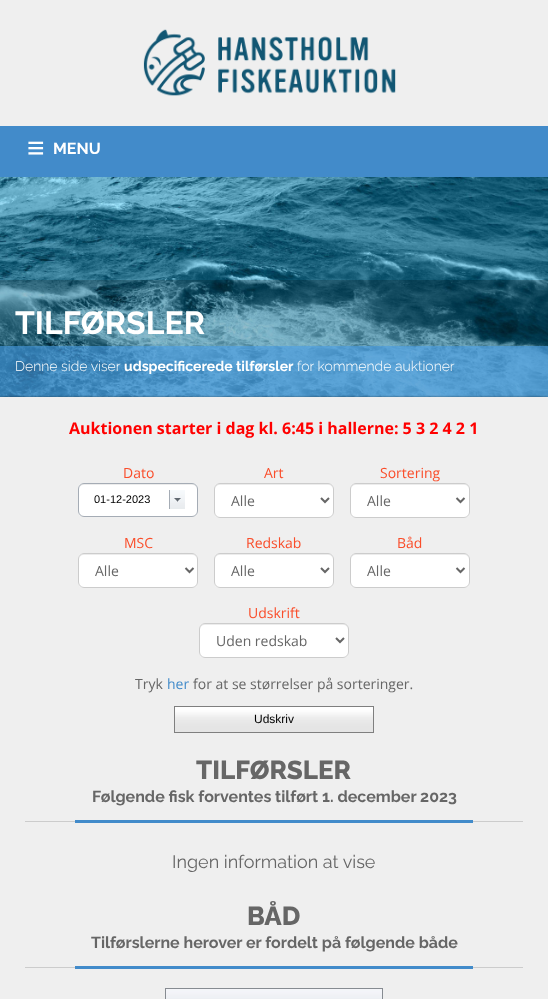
(async () => {
  const canvas = document.querySelector("canvas");
  canvas.width = 548;
  canvas.height = 999;
  const ctx = canvas.getContext("2d");
  ctx.miterLimit = 4;
  ctx.fontKerning = "normal";
  async function loadImage(src) {
    const img = new Image();
    img.src = src;
    await img.decode();
    return img;
  }
  let path;

  ctx.fillStyle = "#efefef";
  ctx.fillRect(0, 0, 548, 999);
  ctx.drawImage(await loadImage("img/1.png"), 143, 29, 253, 67);
  ctx.fillStyle = "#428bca";
  ctx.fillRect(0, 126, 548, 51);
  ctx.drawImage(await loadImage("img/2.png"), 0, 177, 548, 220);
  ctx.fillStyle = "rgba(0, 0, 0, 0.2)";
  ctx.fillRect(0, 280, 548, 66);
  ctx.fillStyle = "rgba(66, 139, 202, 0.7)";
  ctx.fillRect(0, 346, 548, 51);
  ctx.save();
  ctx.beginPath();
  ctx.rect(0, 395, 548, 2);
  ctx.clip();
  ctx.fillStyle = "rgba(0, 0, 0, 0.5)";
  ctx.filter = "blur(1px)";
  ctx.beginPath();
  ctx.rect(0, 397, 548, 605);
  ctx.fill();
  ctx.filter = "none";
  ctx.restore();
  ctx.fillStyle = "#ffffff";
  ctx.beginPath();
  ctx.roundRect(78, 483, 120, 34, 6);
  ctx.fill();
  ctx.fillStyle = "#ececec";
  path = new Path2D("M84 485H192C195 485 197 487 197 490C197 479 179 484 174 484H102C97 484 79 479 79 490C79 487 81 485 84 485Z");
  ctx.fill(path);
  ctx.beginPath();
  ctx.roundRect(78.5, 483.5, 119, 33, 5.5);
  ctx.strokeStyle = "#a5acb5";
  ctx.stroke();
  ctx.drawImage(await loadImage("img/3.png"), 170, 490, 15, 19);
  ctx.fillStyle = "#a5acb5";
  ctx.fillRect(169, 490, 1, 19);
  ctx.drawImage(await loadImage("img/4.png"), 174, 498, 7, 4);
  ctx.fillStyle = "#ffffff";
  ctx.beginPath();
  ctx.roundRect(214, 483, 120, 35, 6);
  ctx.fill();
  ctx.fillStyle = "#ececec";
  path = new Path2D("M220 485H328C331 485 333 487 333 490C333 479 315 484 310 484H238C233 484 215 479 215 490C215 487 217 485 220 485Z");
  ctx.fill(path);
  ctx.beginPath();
  ctx.roundRect(214.5, 483.5, 119, 34, 5.5);
  ctx.strokeStyle = "#cccccc";
  ctx.stroke();
  path = new Path2D("M321 498L325 502L329 498");
  ctx.strokeStyle = "#666666";
  ctx.lineWidth = 2;
  ctx.stroke(path);
  ctx.fillStyle = "#ffffff";
  ctx.beginPath();
  ctx.roundRect(350, 483, 120, 35, 6);
  ctx.fill();
  ctx.fillStyle = "#ececec";
  path = new Path2D("M356 485H464C467 485 469 487 469 490C469 479 451 484 446 484H374C369 484 351 479 351 490C351 487 353 485 356 485Z");
  ctx.fill(path);
  ctx.beginPath();
  ctx.roundRect(350.5, 483.5, 119, 34, 5.5);
  ctx.strokeStyle = "#cccccc";
  ctx.lineWidth = 1;
  ctx.stroke();
  path = new Path2D("M456.5 498L460.5 502L464.5 498");
  ctx.strokeStyle = "#666666";
  ctx.lineWidth = 2;
  ctx.stroke(path);
  ctx.fillStyle = "#ffffff";
  ctx.beginPath();
  ctx.roundRect(78, 553, 120, 35, 6);
  ctx.fill();
  ctx.fillStyle = "#ececec";
  path = new Path2D("M84 555H192C195 555 197 557 197 560C197 549 179 554 174 554H102C97 554 79 549 79 560C79 557 81 555 84 555Z");
  ctx.fill(path);
  ctx.beginPath();
  ctx.roundRect(78.5, 553.5, 119, 34, 5.5);
  ctx.strokeStyle = "#cccccc";
  ctx.lineWidth = 1;
  ctx.stroke();
  path = new Path2D("M185.5 568L189.5 572L193.5 568");
  ctx.strokeStyle = "#666666";
  ctx.lineWidth = 2;
  ctx.stroke(path);
  ctx.fillStyle = "#ffffff";
  ctx.beginPath();
  ctx.roundRect(214, 553, 120, 35, 6);
  ctx.fill();
  ctx.fillStyle = "#ececec";
  path = new Path2D("M220 555H328C331 555 333 557 333 560C333 549 315 554 310 554H238C233 554 215 549 215 560C215 557 217 555 220 555Z");
  ctx.fill(path);
  ctx.beginPath();
  ctx.roundRect(214.5, 553.5, 119, 34, 5.5);
  ctx.strokeStyle = "#cccccc";
  ctx.lineWidth = 1;
  ctx.stroke();
  path = new Path2D("M321 568L325 572L329 568");
  ctx.strokeStyle = "#666666";
  ctx.lineWidth = 2;
  ctx.stroke(path);
  ctx.fillStyle = "#ffffff";
  ctx.beginPath();
  ctx.roundRect(350, 553, 120, 35, 6);
  ctx.fill();
  ctx.fillStyle = "#ececec";
  path = new Path2D("M356 555H464C467 555 469 557 469 560C469 549 451 554 446 554H374C369 554 351 549 351 560C351 557 353 555 356 555Z");
  ctx.fill(path);
  ctx.beginPath();
  ctx.roundRect(350.5, 553.5, 119, 34, 5.5);
  ctx.strokeStyle = "#cccccc";
  ctx.lineWidth = 1;
  ctx.stroke();
  path = new Path2D("M456.5 568L460.5 572L464.5 568");
  ctx.strokeStyle = "#666666";
  ctx.lineWidth = 2;
  ctx.stroke(path);
  ctx.fillStyle = "#ffffff";
  ctx.beginPath();
  ctx.roundRect(199, 623, 150, 35, 6);
  ctx.fill();
  ctx.fillStyle = "#ececec";
  path = new Path2D("M205 625H343C346 625 348 627 348 630V629C348 626 346 624 343 624H205C202 624 200 626 200 629V630C200 627 202 625 205 625Z");
  ctx.fill(path);
  ctx.beginPath();
  ctx.roundRect(199.5, 623.5, 149, 34, 5.5);
  ctx.strokeStyle = "#cccccc";
  ctx.lineWidth = 1;
  ctx.stroke();
  path = new Path2D("M336 638L340 642L344 638");
  ctx.strokeStyle = "#666666";
  ctx.lineWidth = 2;
  ctx.stroke(path);
  ctx.drawImage(await loadImage("img/5.png"), 175, 707, 198, 25);
  ctx.strokeStyle = "#7f7f7f";
  ctx.lineWidth = 1;
  ctx.strokeRect(174.5, 706.5, 199, 26);
  for (const [x, y, w, h, color] of [
    [25, 821, 498, 1, "#cccccc"],
    [75, 820, 398, 3, "#428bca"],
    [25, 967, 498, 1, "#cccccc"],
    [75, 966, 398, 3, "#428bca"],
  ]) {
    ctx.fillStyle = color;
    ctx.fillRect(x, y, w, h);
  }
  ctx.strokeStyle = "#868b91";
  ctx.strokeRect(165.5, 988.5, 217, 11);
  ctx.drawImage(await loadImage("img/6.png"), 166, 989, 120, 10);
  ctx.drawImage(await loadImage("img/7.png"), 286, 989, 80, 10);
  ctx.drawImage(await loadImage("img/8.png"), 366, 989, 16, 10);
  ctx.font = "bold 30px Liberation Sans";
  ctx.fillStyle = "#ffffff";
  ctx.fillText("≡", 27, 158);
  ctx.font = "bold 16px Raleway";
  ctx.fillText("MENU", 53, 154);
  ctx.font = "bold 32px Raleway";
  ctx.fillText("TILFØRSLER", 15, 334);
  ctx.font = "300 14px Raleway";
  ctx.fillText("Denne side viser", 15, 371);
  ctx.font = "bold 14px Raleway";
  ctx.fillText("udspecificerede tilførsler", 124, 371);
  ctx.font = "300 14px Raleway";
  ctx.fillText("for kommende auktioner", 297, 371);
  ctx.font = "bold 16px Open Sans";
  ctx.fillStyle = "#ff0000";
  ctx.fillText("Auktionen starter i dag kl. 6:45 i hallerne: 5 3 2 4 2 1", 69, 434);
  ctx.font = "14px Open Sans";
  ctx.fillStyle = "#fa4d2a";
  ctx.fillText("Dato", 123, 478);
  ctx.font = "11px Liberation Sans";
  ctx.fillStyle = "#000000";
  ctx.fillText("01-12-2023", 94, 503);
  ctx.font = "14px Open Sans";
  ctx.fillStyle = "#fa4d2a";
  ctx.fillText("Art", 264, 478);
  ctx.fillStyle = "#666666";
  ctx.fillText("Alle", 231, 506);
  ctx.fillStyle = "#fa4d2a";
  ctx.fillText("Sortering", 380, 478);
  ctx.fillStyle = "#666666";
  ctx.fillText("Alle", 367, 506);
  ctx.fillStyle = "#fa4d2a";
  ctx.fillText("MSC", 124, 548);
  ctx.fillStyle = "#666666";
  ctx.fillText("Alle", 95, 576);
  ctx.fillStyle = "#fa4d2a";
  ctx.fillText("Redskab", 246, 548);
  ctx.fillStyle = "#666666";
  ctx.fillText("Alle", 231, 576);
  ctx.fillStyle = "#fa4d2a";
  ctx.fillText("Båd", 397, 548);
  ctx.fillStyle = "#666666";
  ctx.fillText("Alle", 367, 576);
  ctx.fillStyle = "#fa4d2a";
  ctx.fillText("Udskrift", 248, 618);
  ctx.fillStyle = "#666666";
  ctx.fillText("Uden redskab", 216, 646);
  ctx.fillText("Tryk", 135, 689);
  ctx.fillStyle = "#428bca";
  ctx.fillText("her", 167, 689);
  ctx.fillStyle = "#666666";
  ctx.fillText("for at se størrelser på sorteringer.", 193, 689);
  ctx.font = "12px Liberation Sans";
  ctx.fillStyle = "#000000";
  ctx.fillText("Udskriv", 254, 723);
  ctx.font = "800 26px Raleway";
  ctx.fillStyle = "#666666";
  ctx.fillText("TILFØRSLER", 196, 779);
  ctx.font = "bold 16px Raleway";
  ctx.fillText("Følgende fisk forventes tilført 1. december 2023", 92, 802);
  ctx.font = "18px Raleway";
  ctx.fillText("Ingen information at vise", 172, 868);
  ctx.font = "800 26px Raleway";
  ctx.fillText("BÅD", 247, 925);
  ctx.font = "bold 16px Raleway";
  ctx.fillText("Tilførslerne herover er fordelt på følgende både", 91, 948);
})();
